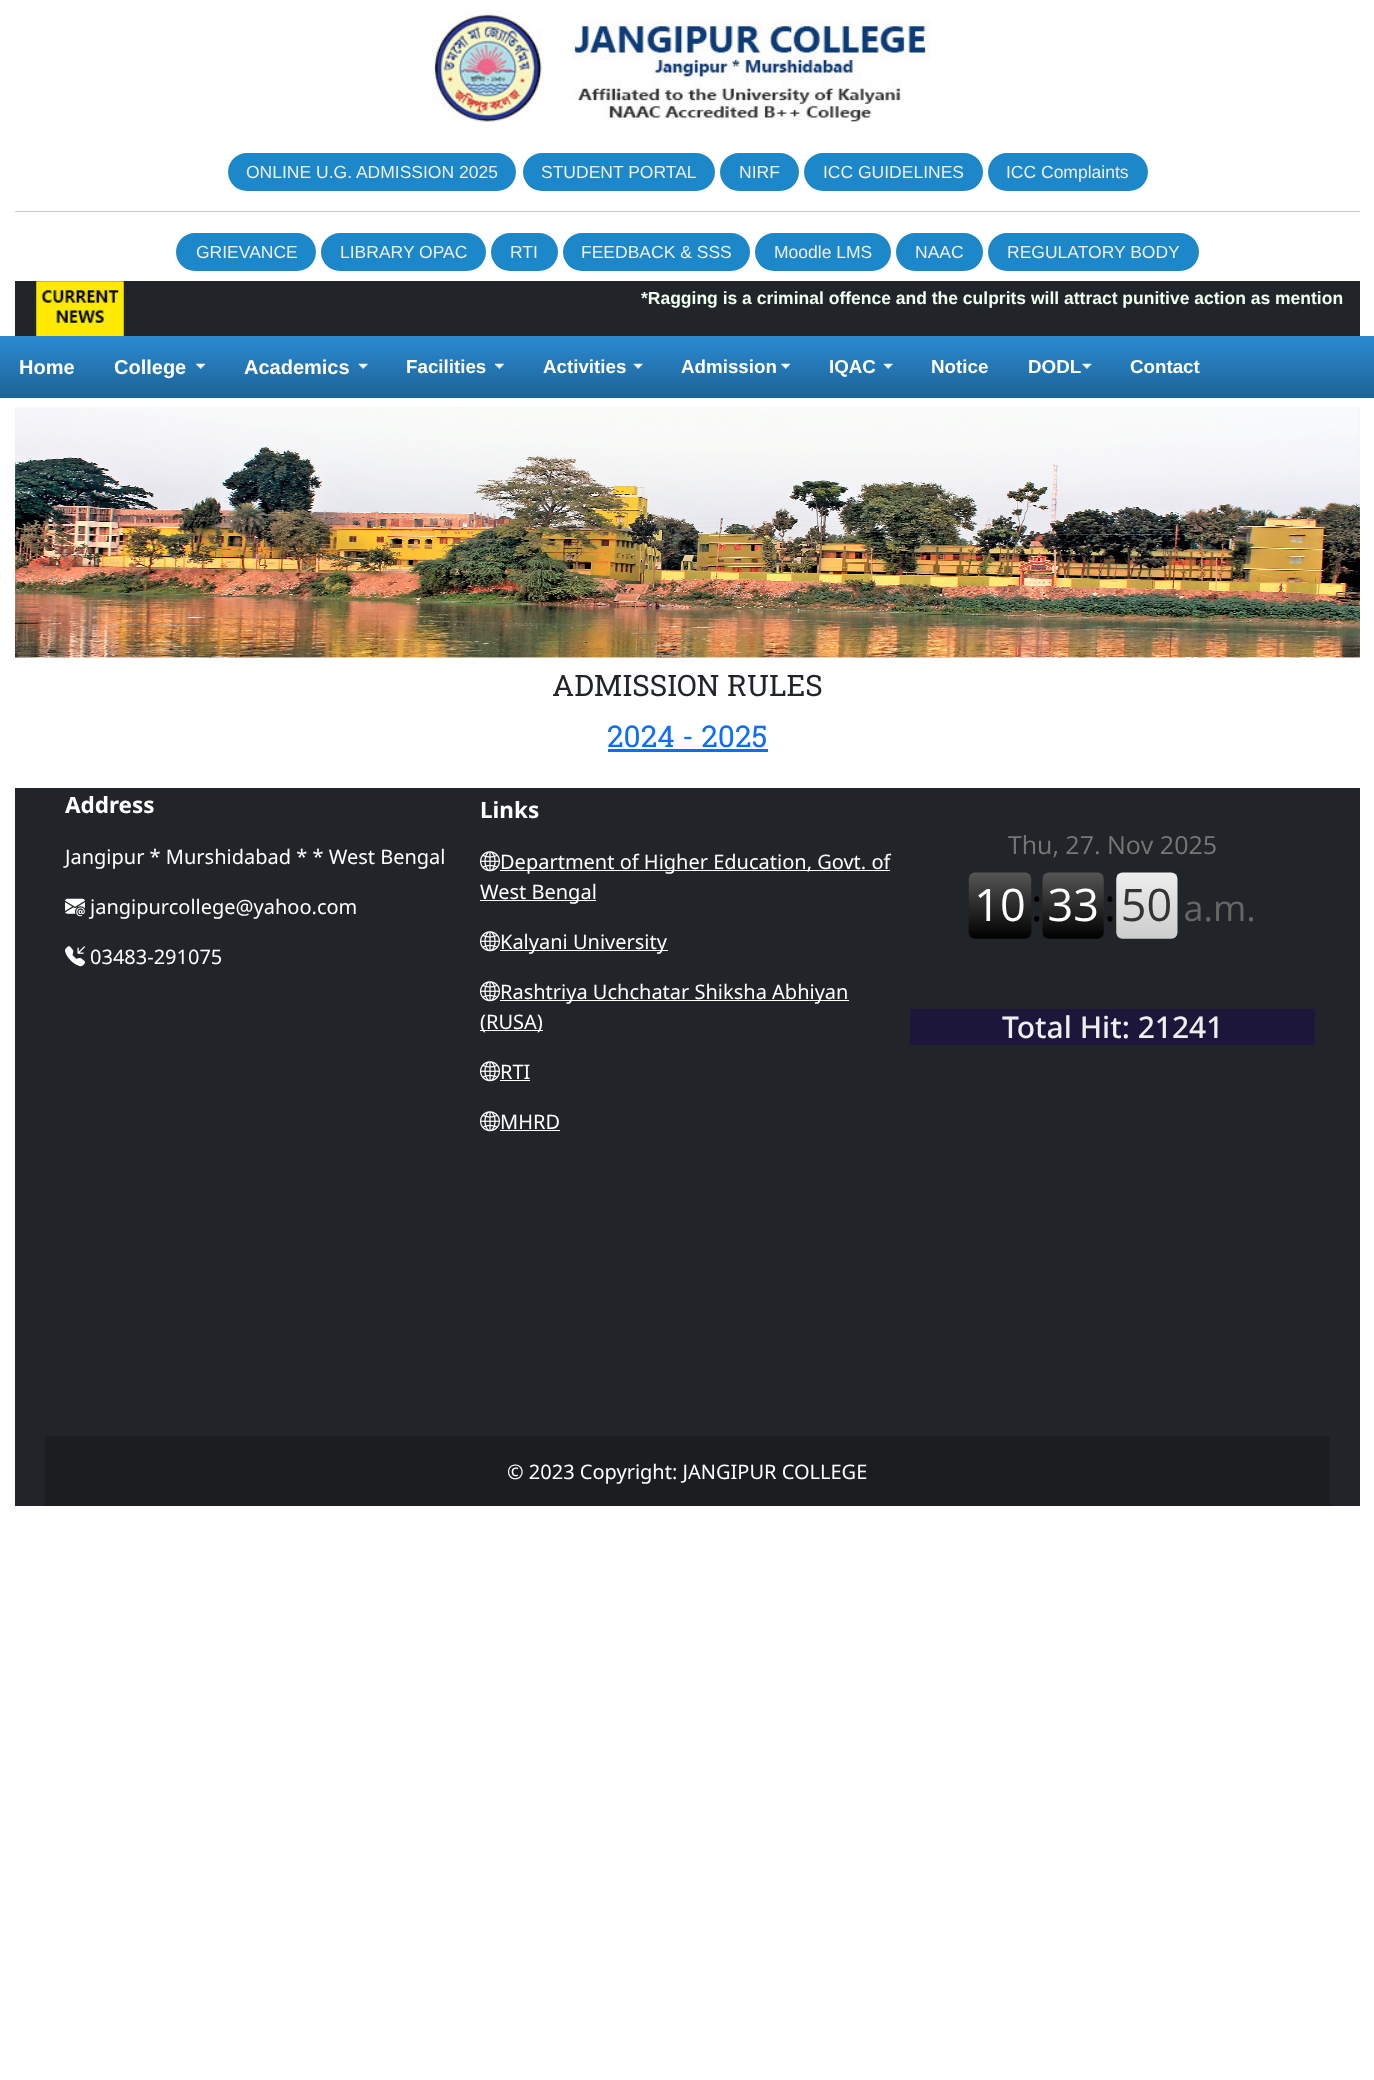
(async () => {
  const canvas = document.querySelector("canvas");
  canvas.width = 1374;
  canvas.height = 2080;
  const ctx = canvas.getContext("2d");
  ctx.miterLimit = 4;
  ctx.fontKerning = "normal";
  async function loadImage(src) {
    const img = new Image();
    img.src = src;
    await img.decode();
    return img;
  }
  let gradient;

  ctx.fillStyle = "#ffffff";
  ctx.fillRect(0, 0, 1374, 2080);
  ctx.drawImage(await loadImage("img/1.png"), 431, 10, 500, 112);
  ctx.fillStyle = "#1c87c9";
  ctx.beginPath();
  ctx.roundRect(228, 153, 288, 38, 19);
  ctx.fill();
  ctx.beginPath();
  ctx.roundRect(523, 153, 192, 38, 19);
  ctx.fill();
  ctx.beginPath();
  ctx.roundRect(720, 153, 79, 38, 19);
  ctx.fill();
  ctx.beginPath();
  ctx.roundRect(804, 153, 179, 38, 19);
  ctx.fill();
  ctx.beginPath();
  ctx.roundRect(988, 153, 160, 38, 19);
  ctx.fill();
  ctx.fillStyle = "#c8c9ca";
  ctx.fillRect(15, 211, 1345, 1);
  ctx.fillStyle = "#1c87c9";
  ctx.beginPath();
  ctx.roundRect(176, 233, 140, 38, 19);
  ctx.fill();
  ctx.beginPath();
  ctx.roundRect(321, 233, 165, 38, 19);
  ctx.fill();
  ctx.beginPath();
  ctx.roundRect(491, 233, 67, 38, 19);
  ctx.fill();
  ctx.beginPath();
  ctx.roundRect(563, 233, 187, 38, 19);
  ctx.fill();
  ctx.beginPath();
  ctx.roundRect(755, 233, 136, 38, 19);
  ctx.fill();
  ctx.beginPath();
  ctx.roundRect(896, 233, 87, 38, 19);
  ctx.fill();
  ctx.beginPath();
  ctx.roundRect(988, 233, 211, 38, 19);
  ctx.fill();
  ctx.fillStyle = "#212529";
  ctx.fillRect(15, 281, 1345, 55);
  ctx.drawImage(await loadImage("img/2.png"), 36, 281, 88, 55);
  gradient = ctx.createLinearGradient(688, 336, 688, 398);
  gradient.addColorStop(0, "#2b8bd2");
  gradient.addColorStop(1, "#1d6396");
  ctx.fillStyle = gradient;
  ctx.fillRect(0, 336, 1374, 62);
  ctx.drawImage(await loadImage("img/3.png"), 196, 363, 10, 6);
  ctx.drawImage(await loadImage("img/4.png"), 358, 363, 10, 6);
  ctx.drawImage(await loadImage("img/5.png"), 495, 363, 9, 6);
  ctx.drawImage(await loadImage("img/6.png"), 633, 363, 10, 6);
  ctx.drawImage(await loadImage("img/7.png"), 781, 363, 10, 6);
  ctx.drawImage(await loadImage("img/4.png"), 883, 363, 10, 6);
  ctx.drawImage(await loadImage("img/8.png"), 1082, 363, 10, 6);
  ctx.drawImage(await loadImage("img/9.png"), 15, 407, 1345, 251);
  ctx.fillStyle = "#0d6efd";
  ctx.fillRect(608, 749, 160, 3);
  ctx.fillStyle = "#212529";
  ctx.fillRect(15, 788, 1345, 718);
  ctx.drawImage(await loadImage("img/10.png"), 65, 898, 20, 19);
  ctx.drawImage(await loadImage("img/11.png"), 65, 946, 20, 21);
  ctx.drawImage(await loadImage("img/12.png"), 480, 851, 20, 21);
  ctx.fillStyle = "#ffffff";
  ctx.fillRect(500, 870, 390, 1);
  ctx.fillRect(480, 900, 116, 1);
  ctx.drawImage(await loadImage("img/12.png"), 480, 931, 20, 21);
  ctx.fillRect(500, 950, 168, 1);
  ctx.drawImage(await loadImage("img/12.png"), 480, 981, 20, 21);
  ctx.fillRect(500, 1000, 349, 1);
  ctx.fillRect(480, 1030, 63, 1);
  ctx.drawImage(await loadImage("img/12.png"), 480, 1061, 20, 21);
  ctx.fillRect(500, 1080, 30, 1);
  ctx.drawImage(await loadImage("img/12.png"), 480, 1111, 20, 21);
  ctx.fillRect(500, 1130, 60, 1);
  ctx.drawImage(await loadImage("img/13.png"), 968, 835, 285, 104);
  ctx.fillStyle = "#1c163b";
  ctx.fillRect(910, 1009, 405, 36);
  ctx.fillStyle = "#1a1e21";
  ctx.fillRect(45, 1436, 1285, 70);
  ctx.font = "17.5px Liberation Sans";
  ctx.fillStyle = "#eeeeee";
  for (const [text, x, y] of [
    ["ONLINE U.G. ADMISSION 2025", 246, 178],
    ["STUDENT PORTAL", 541, 178],
    ["NIRF", 739, 178],
    ["ICC GUIDELINES", 823, 178],
    ["ICC Complaints", 1006, 178],
    ["GRIEVANCE", 196, 258],
    ["LIBRARY OPAC", 340, 258],
    ["RTI", 510, 258],
    ["FEEDBACK & SSS", 581, 258],
    ["Moodle LMS", 774, 258],
    ["NAAC", 915, 258],
    ["REGULATORY BODY", 1007, 258],
  ]) {
    ctx.fillText(text, x, y);
  }
  ctx.font = "bold 17.5px Liberation Sans";
  ctx.fillStyle = "#f0fff0";
  ctx.fillText("*Ragging is a criminal offence and the culprits will attract punitive action as mention", 641, 304);
  ctx.font = "bold 20px Liberation Sans";
  ctx.fillStyle = "#ffffff";
  for (const [text, x, y] of [
    ["Home", 19, 374],
    ["College", 114, 374],
    ["Academics", 244, 374],
  ]) {
    ctx.fillText(text, x, y);
  }
  ctx.font = "bold 18.75px Liberation Sans";
  for (const [text, x, y] of [
    ["Facilities", 406, 373],
    ["Activities", 543, 373],
    ["Admission", 681, 373],
    ["IQAC", 829, 373],
    ["Notice", 931, 373],
    ["DODL", 1028, 373],
    ["Contact", 1130, 373],
  ]) {
    ctx.fillText(text, x, y);
  }
  ctx.font = "29.6px Roboto Slab";
  ctx.fillStyle = "#212529";
  ctx.fillText("ADMISSION RULES", 552, 696);
  ctx.font = "30px Roboto Slab";
  ctx.fillStyle = "#0d6efd";
  ctx.fillText("2024 - 2025", 607, 747);
  ctx.font = "bold 22.5px Noto Sans";
  ctx.fillStyle = "#ffffff";
  ctx.fillText("Address", 65, 813);
  ctx.font = "20px Noto Sans";
  for (const [text, x, y] of [
    ["Jangipur * Murshidabad * * West Bengal", 65, 864],
    ["jangipurcollege@yahoo.com", 90, 914],
    ["03483-291075", 90, 964],
  ]) {
    ctx.fillText(text, x, y);
  }
  ctx.font = "bold 22.5px Noto Sans";
  ctx.fillText("Links", 480, 818);
  ctx.font = "20px Noto Sans";
  for (const [text, x, y] of [
    ["Department of Higher Education, Govt. of", 500, 869],
    ["West Bengal", 480, 899],
    ["Kalyani University", 500, 949],
    ["Rashtriya Uchchatar Shiksha Abhiyan", 500, 999],
    ["(RUSA)", 480, 1029],
    ["RTI", 500, 1079],
    ["MHRD", 500, 1129],
  ]) {
    ctx.fillText(text, x, y);
  }
  ctx.font = "500 30px Noto Sans";
  ctx.fillStyle = "#eeeeee";
  ctx.fillText("Total Hit: 21241", 1002, 1038);
  ctx.font = "20px Noto Sans";
  ctx.fillStyle = "#ffffff";
  ctx.fillText("© 2023 Copyright: JANGIPUR COLLEGE", 507, 1479);
})();
